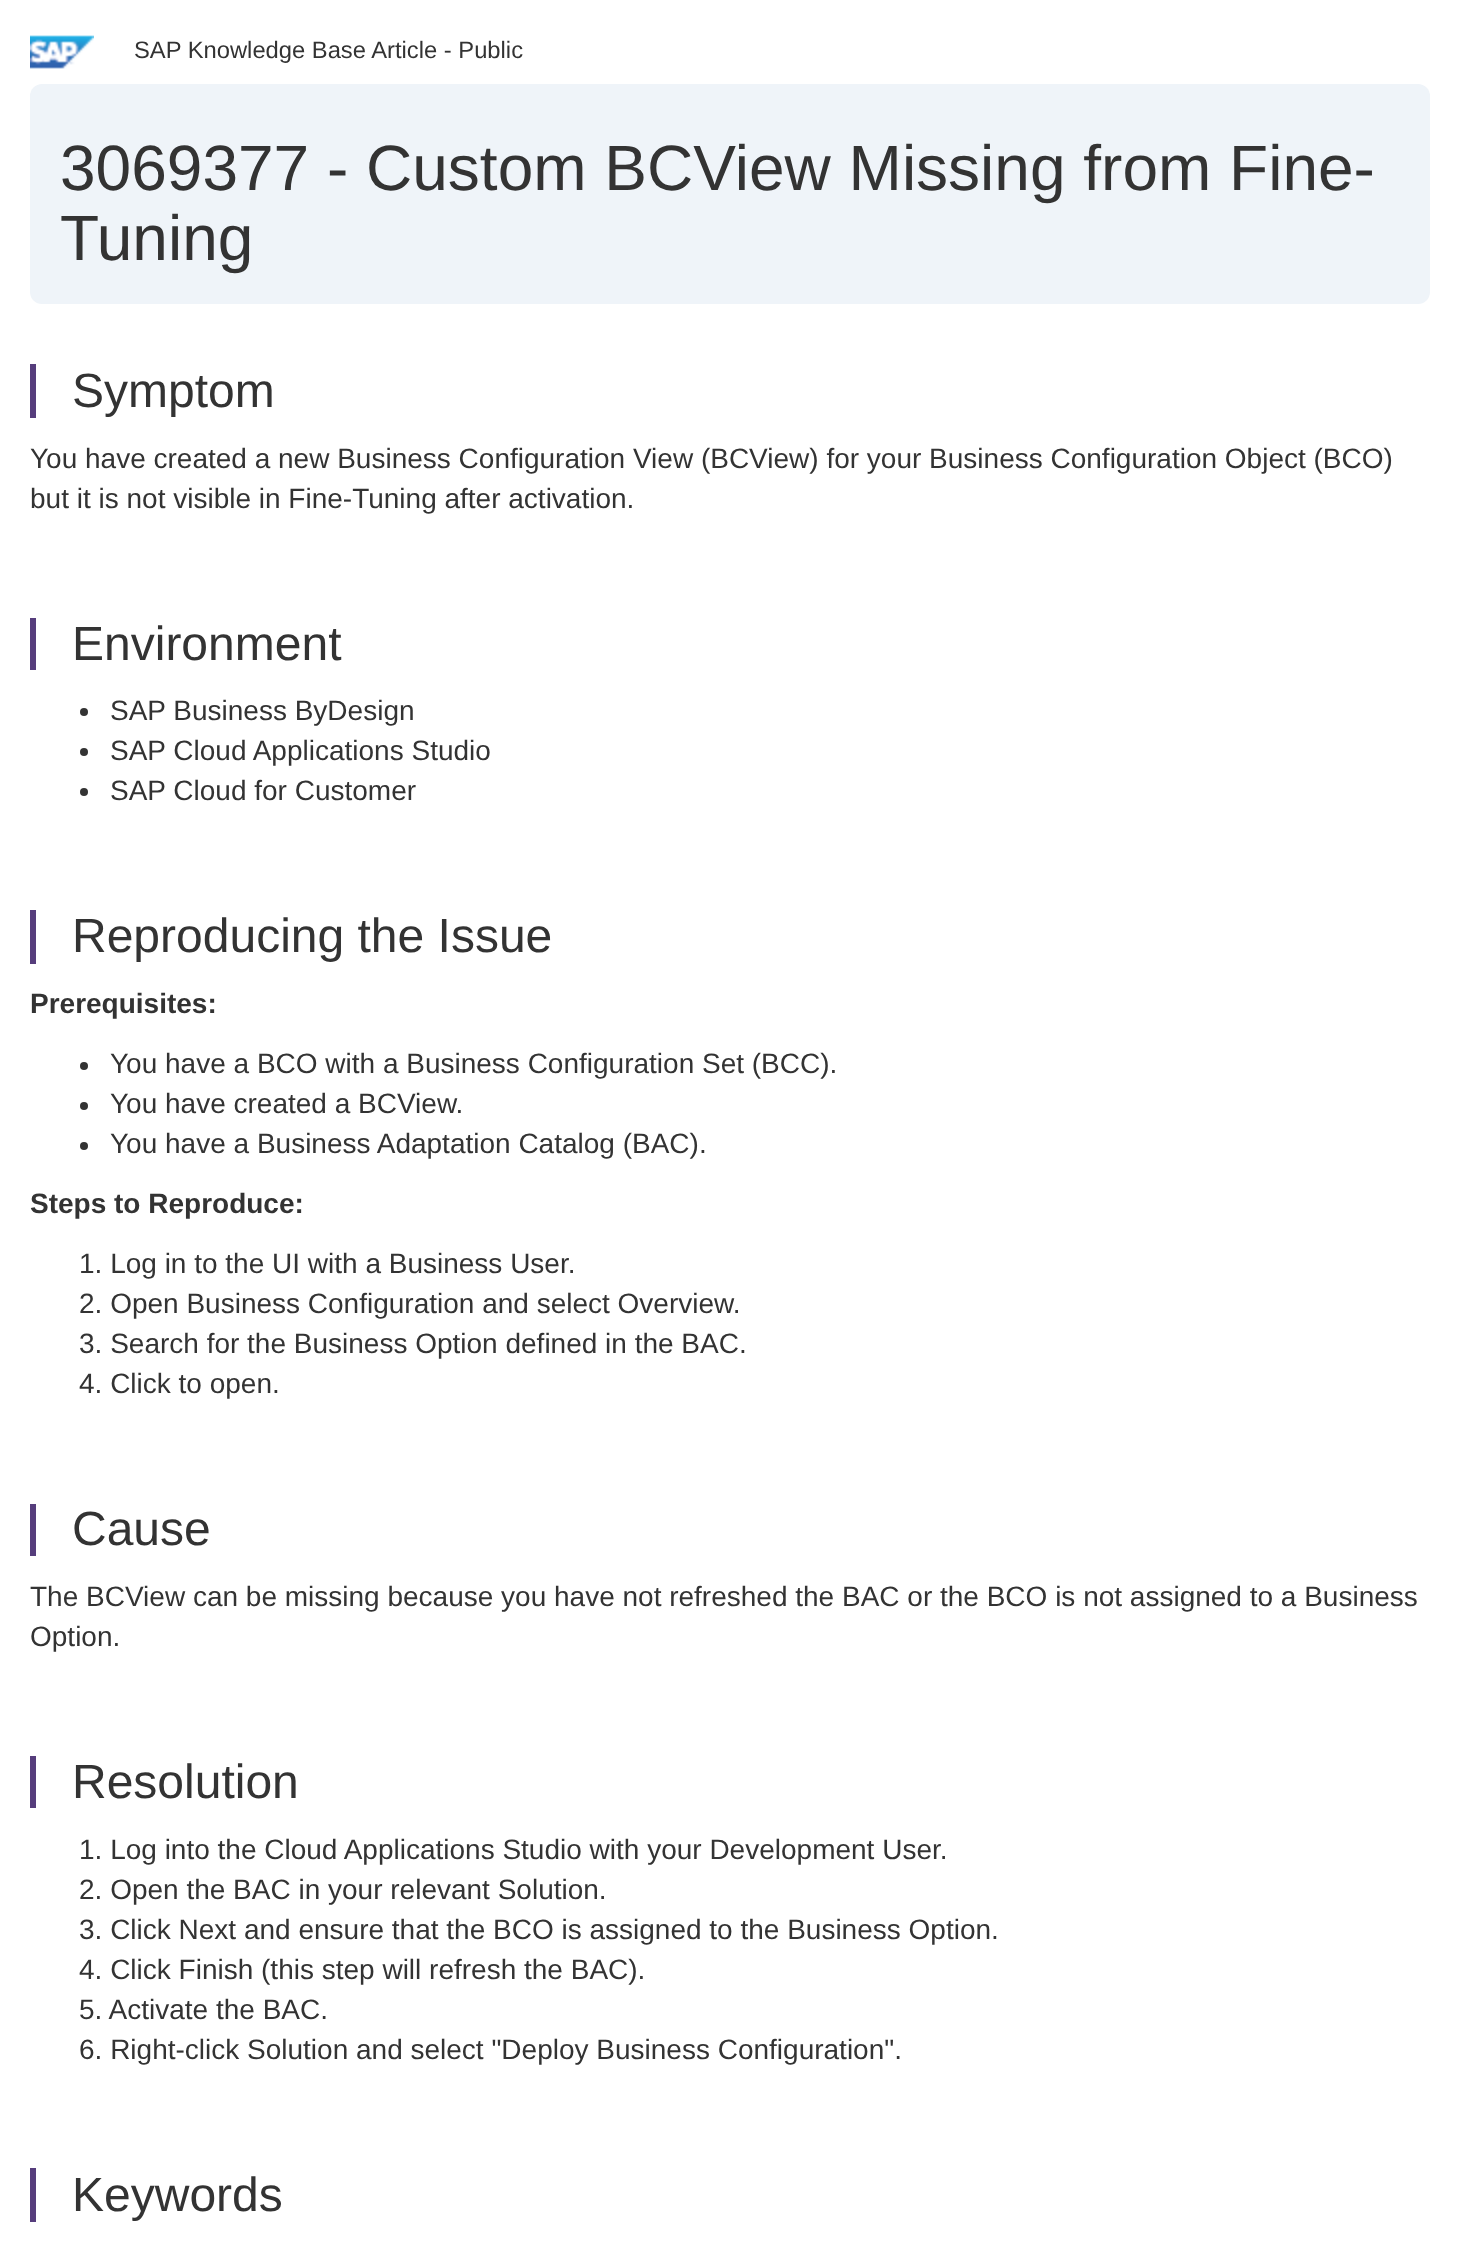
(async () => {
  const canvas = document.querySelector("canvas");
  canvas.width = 1460;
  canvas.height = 2257;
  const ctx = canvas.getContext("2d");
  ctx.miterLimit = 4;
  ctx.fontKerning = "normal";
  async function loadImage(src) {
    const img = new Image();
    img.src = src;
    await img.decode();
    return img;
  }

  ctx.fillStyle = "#ffffff";
  ctx.fillRect(0, 0, 1460, 2257);
  ctx.drawImage(await loadImage("img/1.png"), 30, 35, 64, 34);
  ctx.fillStyle = "#eff4f9";
  ctx.beginPath();
  ctx.roundRect(30, 84, 1400, 220, 12);
  ctx.fill();
  ctx.fillStyle = "#563d7c";
  ctx.fillRect(30, 364, 6, 54);
  ctx.fillRect(30, 618, 6, 52);
  ctx.fillStyle = "#333333";
  ctx.beginPath();
  ctx.arc(84, 712, 4, 0, Math.PI * 2);
  ctx.fill();
  ctx.beginPath();
  ctx.arc(84, 752, 4, 0, Math.PI * 2);
  ctx.fill();
  ctx.beginPath();
  ctx.arc(84, 792, 4, 0, Math.PI * 2);
  ctx.fill();
  ctx.fillStyle = "#563d7c";
  ctx.fillRect(30, 910, 6, 54);
  ctx.fillStyle = "#333333";
  ctx.beginPath();
  ctx.arc(84, 1066, 4, 0, Math.PI * 2);
  ctx.fill();
  ctx.beginPath();
  ctx.arc(84, 1106, 4, 0, Math.PI * 2);
  ctx.fill();
  ctx.beginPath();
  ctx.arc(84, 1146, 4, 0, Math.PI * 2);
  ctx.fill();
  for (const [x, y, w, h, color] of [
    [30, 1504, 6, 52, "#563d7c"],
    [30, 1756, 6, 52, "#563d7c"],
    [30, 2168, 6, 54, "#563d7c"],
  ]) {
    ctx.fillStyle = color;
    ctx.fillRect(x, y, w, h);
  }
  ctx.font = "23.75px Liberation Sans";
  ctx.fillStyle = "#333333";
  ctx.fillText("SAP Knowledge Base Article - Public", 134, 58);
  ctx.font = "64px Liberation Sans";
  ctx.fillText("3069377 - Custom BCView Missing from Fine-", 60, 190);
  ctx.fillText("Tuning", 60, 260);
  ctx.font = "48px Liberation Sans";
  ctx.fillText("Symptom", 72, 407);
  ctx.font = "28px Liberation Sans";
  ctx.fillText("You have created a new Business Configuration View (BCView) for your Business Configuration Object (BCO)", 30, 468);
  ctx.fillText("but it is not visible in Fine-Tuning after activation.", 30, 508);
  ctx.font = "48px Liberation Sans";
  ctx.fillText("Environment", 72, 660);
  ctx.font = "28px Liberation Sans";
  for (const [text, x, y] of [
    ["SAP Business ByDesign", 110, 720],
    ["SAP Cloud Applications Studio", 110, 760],
    ["SAP Cloud for Customer", 110, 800],
  ]) {
    ctx.fillText(text, x, y);
  }
  ctx.font = "48px Liberation Sans";
  ctx.fillText("Reproducing the Issue", 72, 952);
  ctx.font = "bold 28px Liberation Sans";
  ctx.fillText("Prerequisites:", 30, 1013);
  ctx.font = "28px Liberation Sans";
  for (const [text, x, y] of [
    ["You have a BCO with a Business Configuration Set (BCC).", 110, 1073],
    ["You have created a BCView.", 110, 1113],
    ["You have a Business Adaptation Catalog (BAC).", 110, 1153],
  ]) {
    ctx.fillText(text, x, y);
  }
  ctx.font = "bold 28px Liberation Sans";
  ctx.fillText("Steps to Reproduce:", 30, 1213);
  ctx.font = "28px Liberation Sans";
  for (const [text, x, y] of [
    ["1. Log in to the UI with a Business User.", 79, 1273],
    ["2. Open Business Configuration and select Overview.", 79, 1313],
    ["3. Search for the Business Option defined in the BAC.", 79, 1353],
    ["4. Click to open.", 79, 1393],
  ]) {
    ctx.fillText(text, x, y);
  }
  ctx.font = "48px Liberation Sans";
  ctx.fillText("Cause", 72, 1545);
  ctx.font = "28px Liberation Sans";
  ctx.fillText("The BCView can be missing because you have not refreshed the BAC or the BCO is not assigned to a Business", 30, 1606);
  ctx.fillText("Option.", 30, 1646);
  ctx.font = "48px Liberation Sans";
  ctx.fillText("Resolution", 72, 1798);
  ctx.font = "28px Liberation Sans";
  for (const [text, x, y] of [
    ["1. Log into the Cloud Applications Studio with your Development User.", 79, 1859],
    ["2. Open the BAC in your relevant Solution.", 79, 1899],
    ["3. Click Next and ensure that the BCO is assigned to the Business Option.", 79, 1939],
    ["4. Click Finish (this step will refresh the BAC).", 79, 1979],
    ["5. Activate the BAC.", 79, 2019],
    ["6. Right-click Solution and select \"Deploy Business Configuration\".", 79, 2059],
  ]) {
    ctx.fillText(text, x, y);
  }
  ctx.font = "48px Liberation Sans";
  ctx.fillText("Keywords", 72, 2211);
})();
